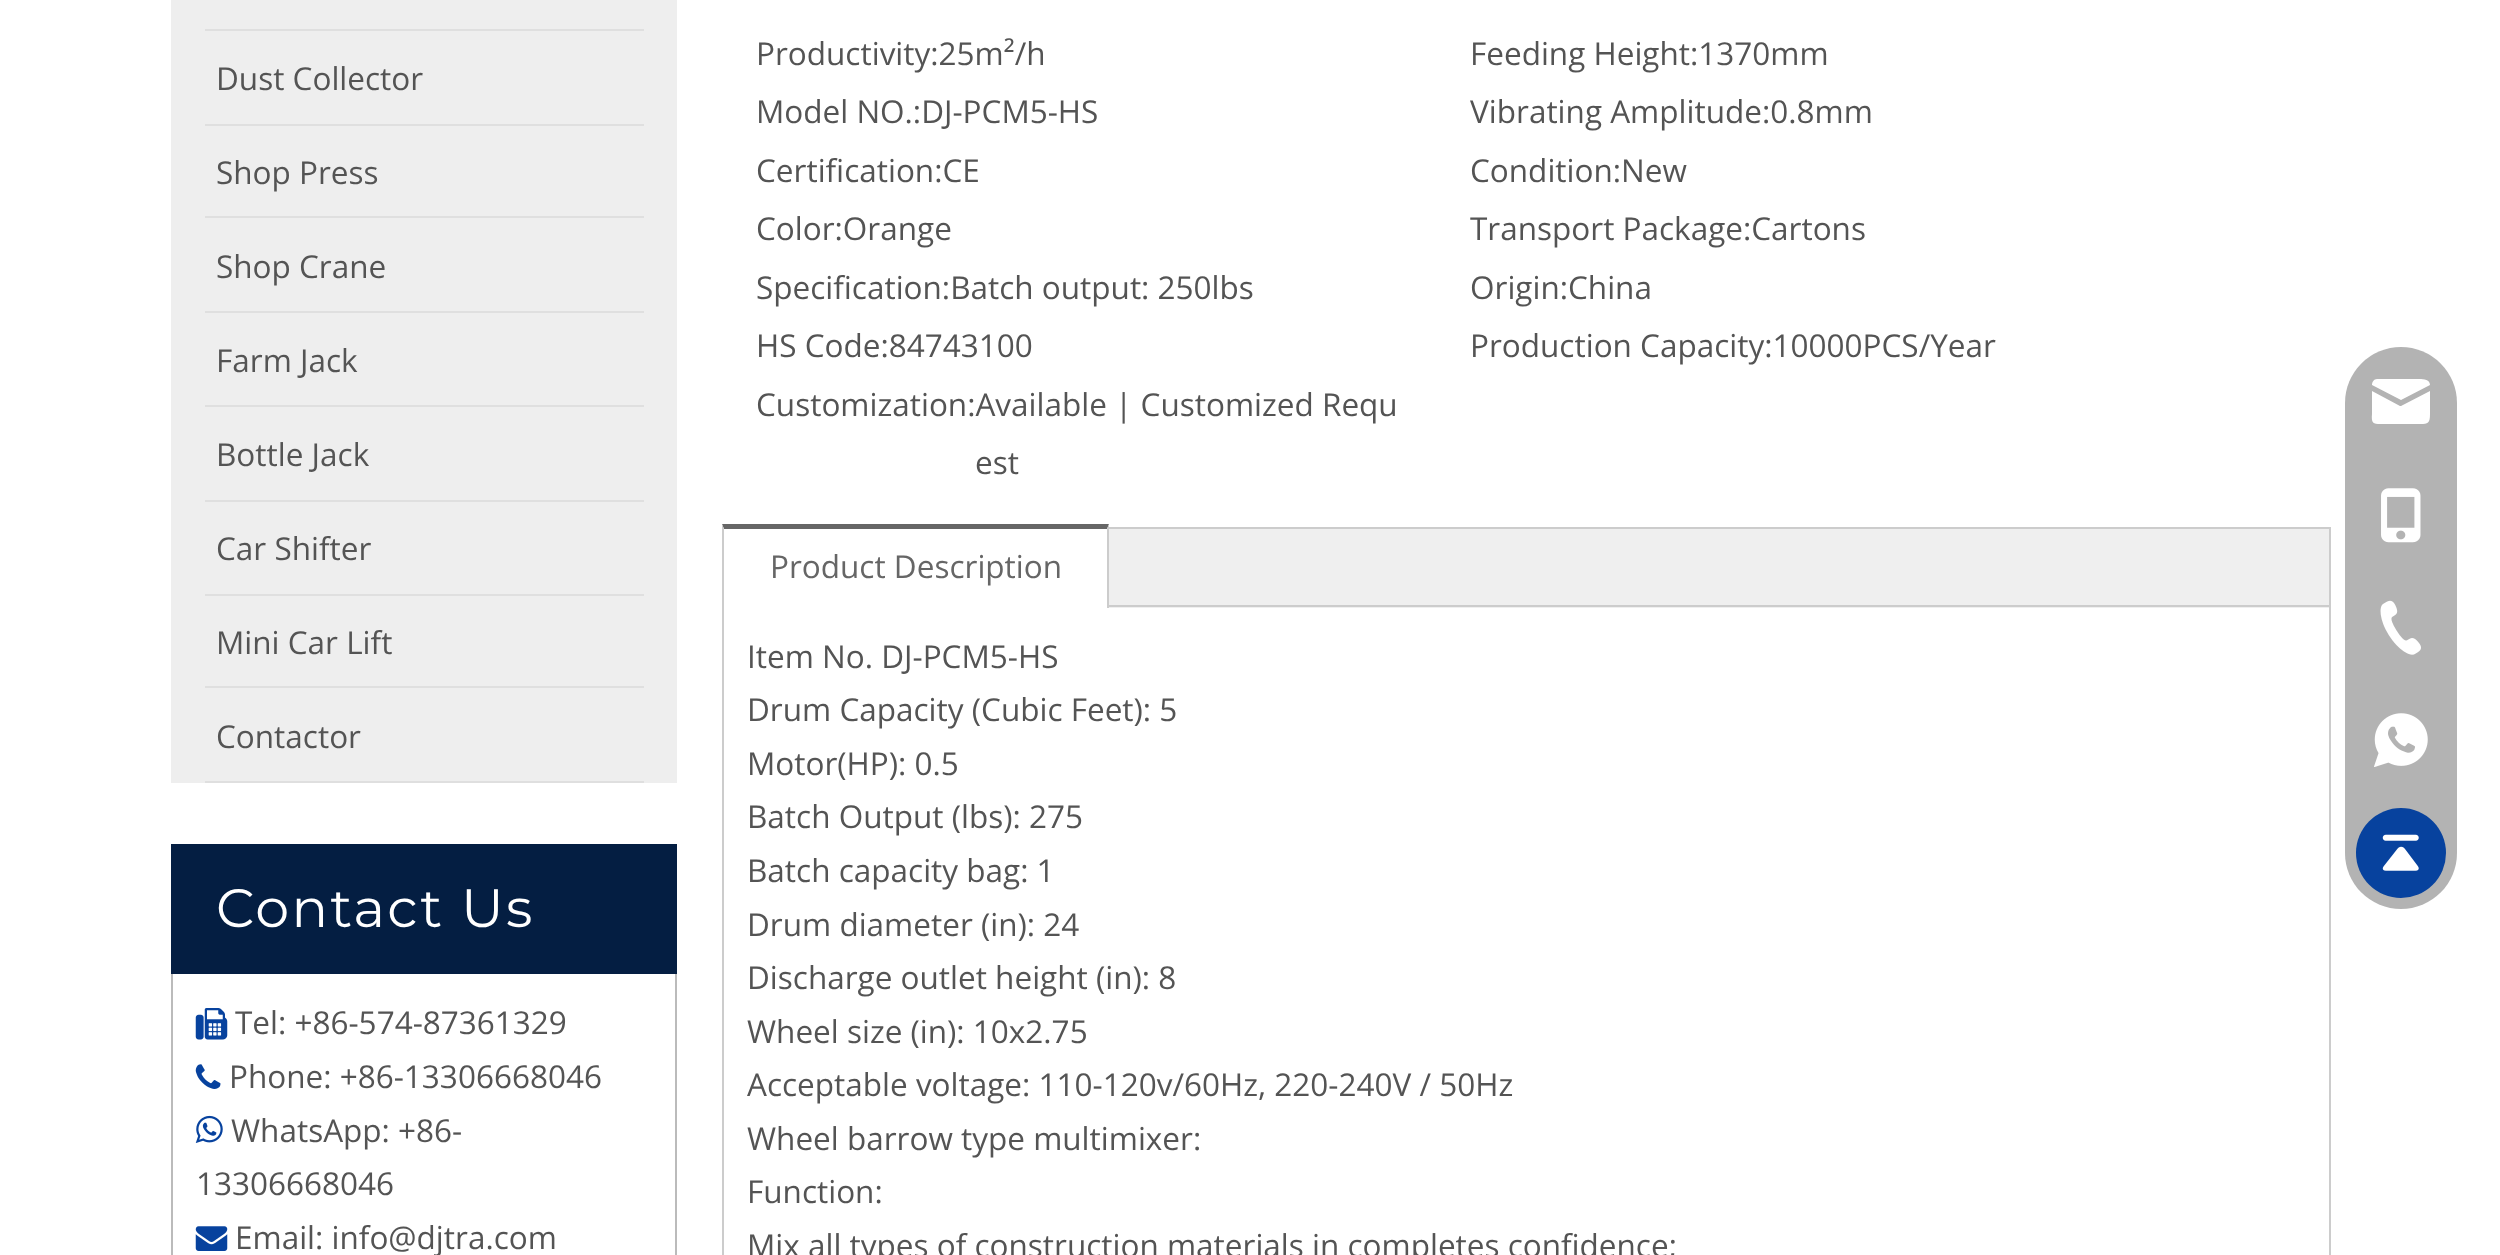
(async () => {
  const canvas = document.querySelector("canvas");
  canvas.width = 2500;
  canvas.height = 1255;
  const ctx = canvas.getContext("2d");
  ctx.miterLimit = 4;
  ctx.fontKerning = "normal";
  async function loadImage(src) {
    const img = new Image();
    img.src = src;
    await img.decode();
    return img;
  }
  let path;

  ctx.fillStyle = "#ffffff";
  ctx.fillRect(0, 0, 2500, 1255);
  for (const [x, y, w, h, color] of [
    [171, 0, 506, 783, "#eeeeee"],
    [205, 29, 439, 2, "#dfdfdf"],
    [205, 124, 439, 2, "#dfdfdf"],
    [205, 216, 439, 2, "#dfdfdf"],
    [205, 311, 439, 2, "#dfdfdf"],
    [205, 405, 439, 2, "#dfdfdf"],
    [205, 500, 439, 2, "#dfdfdf"],
    [205, 594, 439, 2, "#dfdfdf"],
    [205, 686, 439, 2, "#dfdfdf"],
    [205, 781, 439, 2, "#dfdfdf"],
    [171, 844, 506, 130, "#041e42"],
    [675, 974, 2, 281, "#bbbbbb"],
    [171, 974, 2, 281, "#bbbbbb"],
  ]) {
    ctx.fillStyle = color;
    ctx.fillRect(x, y, w, h);
  }
  ctx.drawImage(await loadImage("img/1.png"), 195, 1008, 33, 32);
  ctx.drawImage(await loadImage("img/2.png"), 195, 1064, 26, 25);
  ctx.drawImage(await loadImage("img/3.png"), 195, 1115, 28, 28);
  ctx.drawImage(await loadImage("img/4.png"), 195, 1226, 33, 25);
  ctx.strokeStyle = "#cccccc";
  ctx.lineWidth = 2;
  ctx.strokeRect(723, 528, 1607, 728);
  for (const [x, y, w, h, color] of [
    [1109, 529, 1220, 79, "#efefef"],
    [1109, 605, 1220, 2, "#cccccc"],
    [722, 527, 387, 81, "#ffffff"],
  ]) {
    ctx.fillStyle = color;
    ctx.fillRect(x, y, w, h);
  }
  ctx.fillStyle = "#666666";
  path = new Path2D("M722 524H1109L1107 529H724Z");
  ctx.fill(path);
  ctx.fillStyle = "#cccccc";
  path = new Path2D("M1109 524V608H1107V529Z");
  ctx.fill(path);
  path = new Path2D("M722 608V524L724 529V608Z");
  ctx.fill(path);
  ctx.fillStyle = "#b3b3b3";
  ctx.beginPath();
  ctx.roundRect(2345, 347, 112, 562, 56);
  ctx.fill();
  ctx.fillStyle = "#ffffff";
  path = new Path2D("M2377 379H2416C2420 379 2430 378 2430 385L2401 400L2372 385C2372 382 2374 379 2377 379ZM2372 391V414C2371 425 2374 424 2385 424H2416C2427 424 2430 425 2430 414V391L2401 406H2400Z");
  ctx.fill(path);
  ctx.drawImage(await loadImage("img/5.png"), 2381, 488, 40, 55);
  ctx.drawImage(await loadImage("img/6.png"), 2380, 600, 41, 55);
  ctx.drawImage(await loadImage("img/7.png"), 2374, 713, 54, 54);
  ctx.fillStyle = "#07429e";
  ctx.beginPath();
  ctx.arc(2401, 853, 45, 0, Math.PI * 2);
  ctx.fill();
  ctx.drawImage(await loadImage("img/8.png"), 2382, 834, 37, 37);
  ctx.font = "31.5px Open Sans";
  ctx.fillStyle = "#545454";
  for (const [text, x, y] of [
    ["Dust Collector", 216, 90],
    ["Shop Press", 216, 184],
    ["Shop Crane", 216, 278],
    ["Farm Jack", 216, 372],
    ["Bottle Jack", 216, 466],
    ["Car Shifter", 216, 560],
    ["Mini Car Lift", 216, 654],
    ["Contactor", 216, 748],
  ]) {
    ctx.fillText(text, x, y);
  }
  ctx.letterSpacing = "2.25px";
  ctx.font = "54px Montserrat";
  ctx.fillStyle = "#ffffff";
  ctx.fillText("Contact Us", 216, 927);
  ctx.letterSpacing = "0px";
  ctx.font = "31.5px Open Sans";
  ctx.fillStyle = "#545454";
  for (const [text, x, y] of [
    ["Tel: +86-574-87361329", 235, 1034],
    ["Phone: +86-13306668046", 229, 1088],
    ["WhatsApp: +86-", 231, 1142],
    ["13306668046", 196, 1195],
    ["Email: info@djtra.com", 235, 1249],
    ["Productivity:25m²/h", 756, 65],
    ["Feeding Height:1370mm", 1470, 65],
    ["Model NO.:DJ-PCM5-HS", 756, 123],
    ["Vibrating Amplitude:0.8mm", 1470, 123],
    ["Certification:CE", 756, 182],
    ["Condition:New", 1470, 182],
    ["Color:Orange", 756, 240],
    ["Transport Package:Cartons", 1470, 240],
    ["Specification:Batch output: 250lbs", 756, 299],
    ["Origin:China", 1470, 299],
    ["HS Code:84743100", 756, 357],
    ["Production Capacity:10000PCS/Year", 1470, 357],
    ["Customization:Available | Customized Requ", 756, 416],
    ["est", 975, 474],
  ]) {
    ctx.fillText(text, x, y);
  }
  ctx.fillStyle = "#666666";
  ctx.fillText("Product Description", 770, 578);
  ctx.fillStyle = "#545454";
  for (const [text, x, y] of [
    ["Item No. DJ-PCM5-HS", 747, 668],
    ["Drum Capacity (Cubic Feet): 5", 747, 721],
    ["Motor(HP): 0.5", 747, 775],
    ["Batch Output (lbs): 275", 747, 828],
    ["Batch capacity bag: 1", 747, 882],
    ["Drum diameter (in): 24", 747, 936],
    ["Discharge outlet height (in): 8", 747, 989],
    ["Wheel size (in): 10x2.75", 747, 1043],
    ["Acceptable voltage: 110-120v/60Hz, 220-240V / 50Hz", 747, 1096],
    ["Wheel barrow type multimixer:", 747, 1150],
    ["Function:", 747, 1203],
    ["Mix all types of construction materials in completes confidence;", 747, 1257],
  ]) {
    ctx.fillText(text, x, y);
  }
})();
